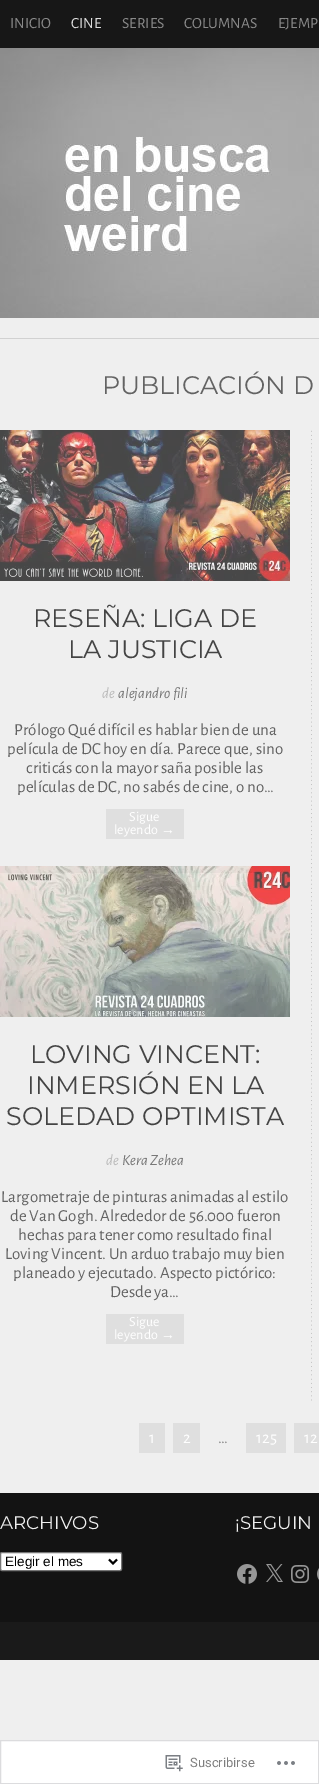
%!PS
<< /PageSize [319 1784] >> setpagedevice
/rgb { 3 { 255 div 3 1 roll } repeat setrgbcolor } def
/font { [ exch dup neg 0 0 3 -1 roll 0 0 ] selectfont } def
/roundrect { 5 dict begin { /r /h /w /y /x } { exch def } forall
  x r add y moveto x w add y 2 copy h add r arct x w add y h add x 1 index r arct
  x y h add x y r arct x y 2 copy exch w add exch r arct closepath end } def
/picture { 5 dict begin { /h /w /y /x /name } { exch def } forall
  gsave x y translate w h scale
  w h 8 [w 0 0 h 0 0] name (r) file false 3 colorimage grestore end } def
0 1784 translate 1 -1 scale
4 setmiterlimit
239 239 239 rgb
0 0 319 1784 rectfill
23 23 23 rgb
0 0 319 48 rectfill
209 209 209 rgb
0 338 319 1 rectfill
(img/1.rgb) 0 48 319 270 picture
(img/2.rgb) 311 430 1 971 picture
(img/3.rgb) 0 430 290 151 picture
223 223 223 rgb
106 809 78 30 rectfill
(img/4.rgb) 0 866 290 151 picture
[
  [106 1314 78 30 223 223 223]
  [139 1423 26 30 223 223 223]
  [173 1423 27 30 223 223 223]
  [246 1423 40 30 223 223 223]
  [294 1423 25 30 223 223 223]
  [0 1493 319 129 19 19 19]
] { aload pop rgb rectfill } forall
255 255 255 rgb
0.5 1552.5 121 18 1.5 roundrect gsave fill grestore
118 118 118 rgb
stroke
0 0 0 rgb
2 setlinewidth
109 1559.5 moveto 113 1563.5 lineto 117 1559.5 lineto stroke
(img/5.rgb) 237 1564 20 20 picture
(img/6.rgb) 266 1564 17 18 picture
(img/7.rgb) 291 1565 18 18 picture
(img/8.rgb) 317 1568 2 12 picture
26 26 26 rgb
0 1622 319 38 rectfill
255 255 255 rgb
0.5 1740.5 moveto 318.5 1740.5 lineto 318.5 1783.5 lineto 0.5 1783.5 lineto closepath gsave fill grestore
220 220 222 rgb
1 setlinewidth
stroke
(img/9.rgb) 165 1755 18 17 picture
(img/10.rgb) 277 1761 18 4 picture
/AlegreyaSans-Regular 15.5 font
137 137 137 rgb
10 28 moveto (INICIO) show
219 219 219 rgb
71 28 moveto (CINE) show
137 137 137 rgb
[
  [(SERIES) 122 28]
  [(COLUMNAS) 184 28]
  [(EJEMP) 278 28]
] { aload pop moveto show } forall
/Montserrat-Thin 25.4 font
99 99 99 rgb
102 394 moveto (PUBLICACIÓN D) show
68 68 68 rgb
33 627 moveto (RESEÑA: LIGA DE) show
68 658 moveto (LA JUSTICIA) show
/AlegreyaSans-Italic 15.5 font
187 187 187 rgb
102 698 moveto (de) show
120 120 120 rgb
118 698 moveto (alejandro fili) show
/AlegreyaSans-Regular 16.9 font
99 99 99 rgb
[
  [(Prólogo Qué difícil es hablar bien de una) 14 735]
  [(película de DC hoy en día. Parece que, sino) 7 754]
  [(criticás con la mayor saña posible las) 26 773]
  [(películas de DC, no sabés de cine, o no…) 17 792]
] { aload pop moveto show } forall
/AlegreyaSans-Regular 14 font
255 255 255 rgb
129 821 moveto (Sigue) show
114 834 moveto (leyendo) show
/LiberationSans-Regular 14 font
161 834 moveto (→) show
/Montserrat-Thin 25.4 font
68 68 68 rgb
[
  [(LOVING VINCENT:) 30 1063]
  [(INMERSIÓN EN LA) 27 1094]
  [(SOLEDAD OPTIMISTA) 6 1125]
] { aload pop moveto show } forall
/AlegreyaSans-Italic 15.5 font
187 187 187 rgb
106 1165 moveto (de) show
120 120 120 rgb
122 1165 moveto (Kera Zehea) show
/AlegreyaSans-Regular 16.9 font
99 99 99 rgb
[
  [(Largometraje de pinturas animadas al estilo) 1 1202]
  [(de Van Gogh. Alrededor de 56.000 fueron) 10 1221]
  [(hechas para tener como resultado final) 18 1240]
  [(Loving Vincent. Un arduo trabajo muy bien) 5 1259]
  [(planeado y ejecutado. Aspecto pictórico:) 13 1278]
  [(Desde ya…) 110 1297]
] { aload pop moveto show } forall
/AlegreyaSans-Regular 14 font
255 255 255 rgb
129 1326 moveto (Sigue) show
114 1339 moveto (leyendo) show
/LiberationSans-Regular 14 font
161 1339 moveto (→) show
/AlegreyaSans-Regular 16.9 font
149 1443 moveto (1) show
183 1443 moveto (2) show
127 127 127 rgb
218 1443 moveto (…) show
255 255 255 rgb
256 1443 moveto (125) show
304 1443 moveto (12) show
/Montserrat-Thin 18.25 font
239 239 239 rgb
0 1529 moveto (ARCHIVOS) show
/LiberationSans-Regular 13.5 font
0 0 0 rgb
5 1566 moveto (Elegir el mes) show
/Montserrat-Thin 18.25 font
239 239 239 rgb
235 1529 moveto (¡SEGUIN) show
/Roboto-Regular 13 font
127 127 127 rgb
190 1767 moveto (Suscribirse) show
showpage
